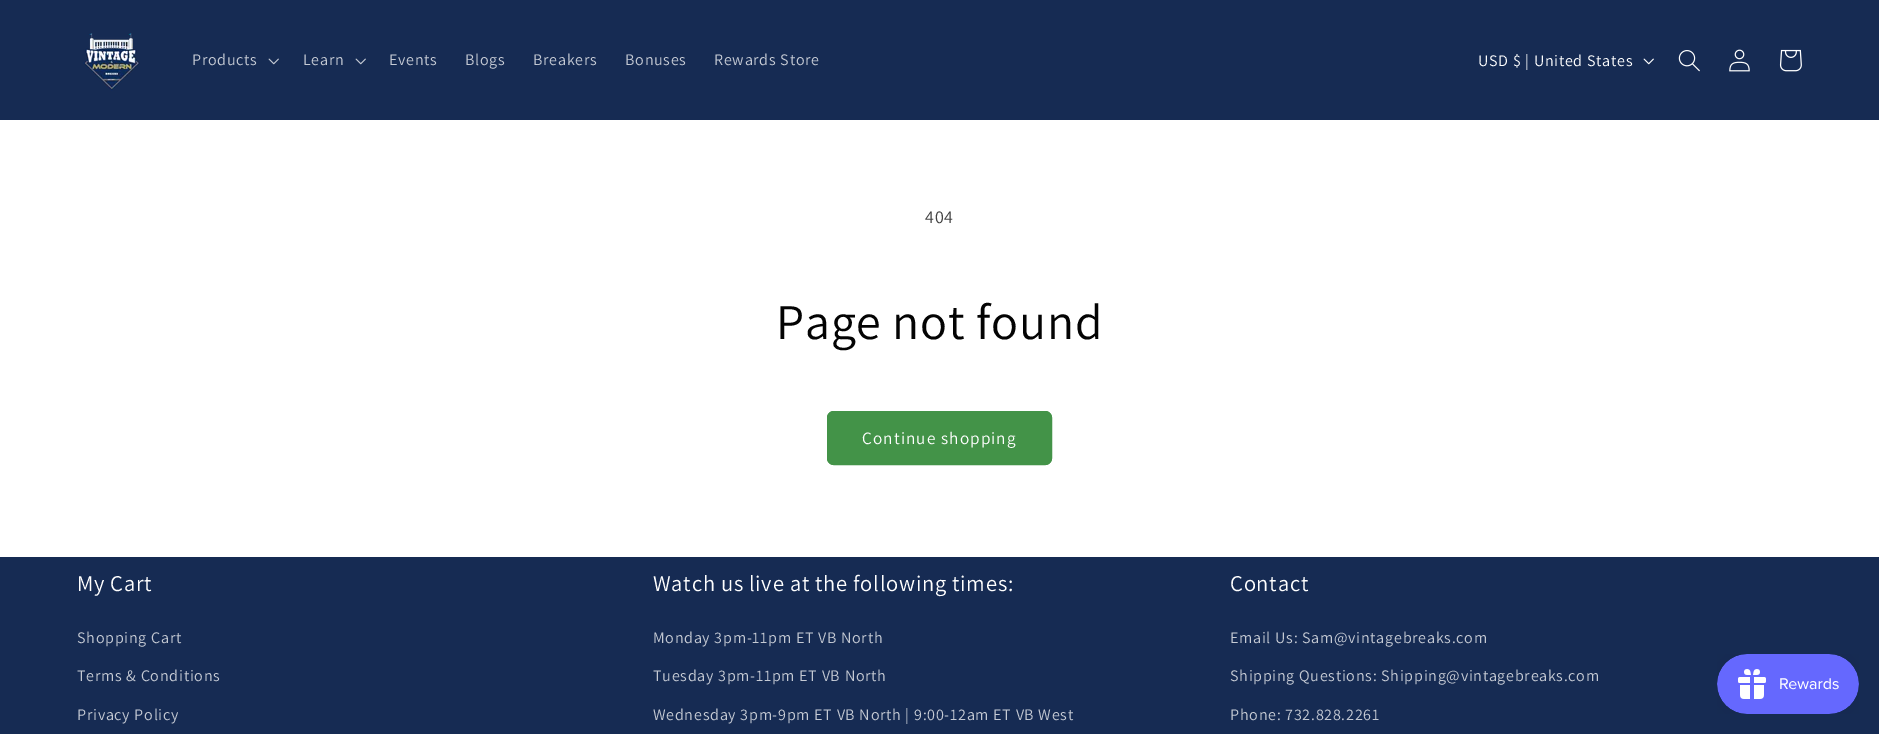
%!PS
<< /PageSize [1879 734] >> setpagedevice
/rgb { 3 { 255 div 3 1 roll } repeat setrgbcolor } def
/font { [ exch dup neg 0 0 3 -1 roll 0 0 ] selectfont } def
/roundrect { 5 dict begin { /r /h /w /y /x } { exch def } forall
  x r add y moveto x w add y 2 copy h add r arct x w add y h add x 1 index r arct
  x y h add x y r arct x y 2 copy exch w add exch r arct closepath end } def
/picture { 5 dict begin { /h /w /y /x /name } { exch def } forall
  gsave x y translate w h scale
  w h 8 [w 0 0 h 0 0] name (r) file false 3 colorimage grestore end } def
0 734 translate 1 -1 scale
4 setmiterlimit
255 255 255 rgb
0 0 1879 734 rectfill
22 43 83 rgb
0 0 1879 120 rectfill
(img/1.rgb) 83 33 57 58 picture
(img/2.rgb) 268 58 11 7 picture
(img/2.rgb) 355 58 11 7 picture
(img/3.rgb) 1643 58 11 7 picture
(img/4.rgb) 1678 50 22 22 picture
(img/5.rgb) 1729 49 21 23 picture
(img/6.rgb) 1779 49 23 23 picture
67 147 72 rgb
827 411 225 54 7 roundrect fill
827.5 411.5 224 53 6.5 roundrect stroke
22 43 83 rgb
0 557 1879 177 rectfill
(img/7.rgb) 1717 654 142 60 picture
/Assistant-Regular 16.1 font
197 202 212 rgb
192 65 moveto 0.7 0 (Products) ashow
303 65 moveto 0.7 0 (Learn) ashow
389 65 moveto 0.7 0 (Events) ashow
465 65 moveto 0.7 0 (Blogs) ashow
533 65 moveto 0.7 0 (Breakers) ashow
625 65 moveto 0.7 0 (Bonuses) ashow
714 65 moveto 0.7 0 (Rewards Store) ashow
255 255 255 rgb
1478 66 moveto 0.7 0 (USD $ | United States) ashow
/Assistant-Regular 18 font
66 66 66 rgb
925 223 moveto 0.7 0 (404) ashow
/Assistant-Regular 50 font
3 3 3 rgb
776 339 moveto 0.75 0 (Page not found) ashow
/Assistant-Regular 17.25 font
255 255 255 rgb
862 444 moveto 1.1 0 (Continue shopping) ashow
/Assistant-Regular 22.5 font
77 591 moveto 0.75 0 (My Cart) ashow
/Assistant-Regular 16.1 font
197 202 212 rgb
77 643 moveto 0.7 0 (Shopping Cart) ashow
77 681 moveto 0.7 0 (Terms & Conditions) ashow
77 720 moveto 0.7 0 (Privacy Policy) ashow
/Assistant-Regular 22.5 font
255 255 255 rgb
653 591 moveto 0.75 0 (Watch us live at the following times:) ashow
/Assistant-Regular 16.1 font
197 202 212 rgb
653 643 moveto 0.7 0 (Monday 3pm-11pm ET VB North) ashow
653 681 moveto 0.7 0 (Tuesday 3pm-11pm ET VB North) ashow
653 720 moveto 0.7 0 (Wednesday 3pm-9pm ET VB North | 9:00-12am ET VB West) ashow
/Assistant-Regular 22.5 font
255 255 255 rgb
1230 591 moveto 0.75 0 (Contact) ashow
/Assistant-Regular 16.1 font
197 202 212 rgb
1230 643 moveto 0.7 0 (Email Us: Sam@vintagebreaks.com) ashow
1230 681 moveto 0.7 0 (Shipping Questions: Shipping@vintagebreaks.com) ashow
1230 720 moveto 0.7 0 (Phone: 732.828.2261) ashow
showpage
